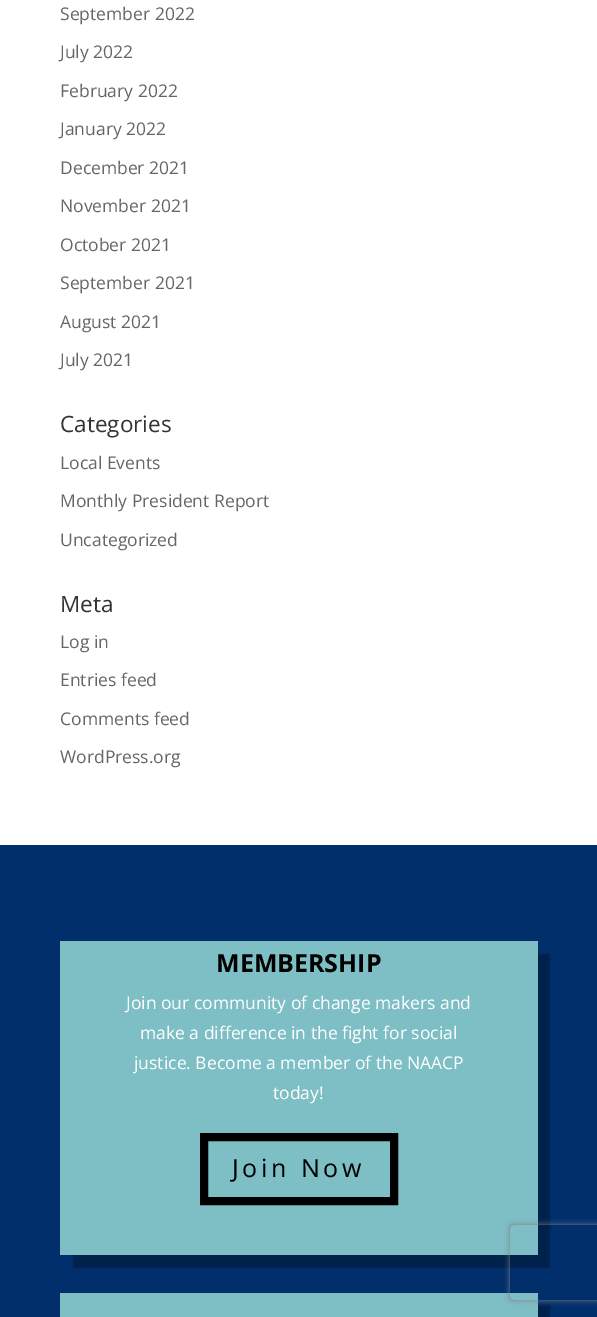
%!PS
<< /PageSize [597 1317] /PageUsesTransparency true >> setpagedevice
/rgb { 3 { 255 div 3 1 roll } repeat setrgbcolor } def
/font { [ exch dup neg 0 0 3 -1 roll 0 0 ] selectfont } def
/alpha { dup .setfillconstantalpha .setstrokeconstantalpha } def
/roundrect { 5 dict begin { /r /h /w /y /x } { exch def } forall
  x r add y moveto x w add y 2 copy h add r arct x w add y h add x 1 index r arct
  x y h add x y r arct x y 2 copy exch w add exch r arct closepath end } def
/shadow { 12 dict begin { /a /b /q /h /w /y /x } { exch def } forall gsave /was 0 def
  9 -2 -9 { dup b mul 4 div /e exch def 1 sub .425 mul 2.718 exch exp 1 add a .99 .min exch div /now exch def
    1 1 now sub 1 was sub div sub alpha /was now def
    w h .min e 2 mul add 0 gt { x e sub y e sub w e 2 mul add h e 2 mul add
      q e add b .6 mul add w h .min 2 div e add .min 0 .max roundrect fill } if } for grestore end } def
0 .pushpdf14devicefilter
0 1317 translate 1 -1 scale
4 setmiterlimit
255 255 255 rgb
0 0 597 1317 rectfill
0 47 108 rgb
0 845 597 472 rectfill
0 0 0 rgb
73 954 477 314 0 1 0.3 shadow
126 190 197 rgb
60 941 478 314 rectfill
0 0 0 rgb
8 setlinewidth
204 1137 190 64 rectstroke
73 1305 477 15 0 1 0.3 shadow
126 190 197 rgb
60 1293 478 24 rectfill
gsave
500 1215 moveto 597 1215 lineto 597 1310 lineto 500 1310 lineto closepath 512.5 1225 moveto 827.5 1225 lineto 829 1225 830 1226 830 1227.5 curveto 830 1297.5 lineto 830 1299 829 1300 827.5 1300 curveto 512.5 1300 lineto 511 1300 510 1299 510 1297.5 curveto 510 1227.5 lineto 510 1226 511 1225 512.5 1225 curveto closepath eoclip newpath
128 128 128 rgb
510 1225 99 75 2.5 3 1 shadow
grestore
/OpenSans-Regular 17.5 font
102 102 102 rgb
[
  [(September 2022) 60 20]
  [(July 2022) 60 58]
  [(February 2022) 60 97]
  [(January 2022) 60 135]
  [(December 2021) 60 174]
  [(November 2021) 60 212]
  [(October 2021) 60 251]
  [(September 2021) 60 289]
  [(August 2021) 60 328]
  [(July 2021) 60 366]
] { aload pop moveto show } forall
/OpenSans-Regular 22.5 font
51 51 51 rgb
60 432 moveto (Categories) show
/OpenSans-Regular 17.5 font
102 102 102 rgb
[
  [(Local Events) 60 469]
  [(Monthly President Report) 60 507]
  [(Uncategorized) 60 546]
] { aload pop moveto show } forall
/OpenSans-Regular 22.5 font
51 51 51 rgb
60 612 moveto (Meta) show
/OpenSans-Regular 17.5 font
102 102 102 rgb
[
  [(Log in) 60 648]
  [(Entries feed) 60 686]
  [(Comments feed) 60 725]
  [(WordPress.org) 60 763]
] { aload pop moveto show } forall
/OpenSans-Bold 25 font
0 0 0 rgb
216 972 moveto (MEMBERSHIP) show
/OpenSans-Regular 17.5 font
255 255 255 rgb
[
  [(Join our community of change makers and) 126 1009]
  [(make a difference in the fight for social) 140 1039]
  [(justice. Become a member of the NAACP) 134 1069]
  [(today!) 273 1099]
] { aload pop moveto show } forall
/OpenSans-Regular 25 font
0 0 0 rgb
232 1177 moveto 3.75 0 (Join Now) ashow
.poppdf14devicefilter showpage
